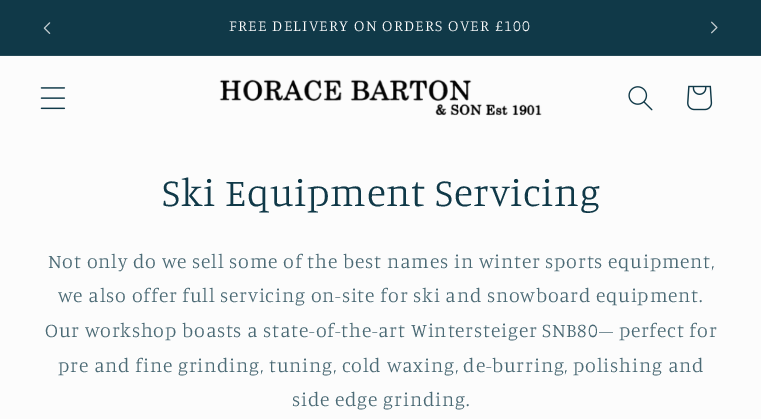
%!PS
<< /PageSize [761 419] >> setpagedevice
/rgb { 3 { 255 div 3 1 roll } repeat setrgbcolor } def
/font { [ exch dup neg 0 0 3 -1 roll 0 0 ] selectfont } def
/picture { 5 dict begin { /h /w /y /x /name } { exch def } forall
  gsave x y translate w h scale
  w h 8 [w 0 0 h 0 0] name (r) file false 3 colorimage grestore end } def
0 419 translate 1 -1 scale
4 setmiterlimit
252 252 252 rgb
0 0 761 419 rectfill
16 57 72 rgb
0 0 761 55 rectfill
35 73 86 rgb
0 55 761 1 rectfill
(img/1.rgb) 43 22 8 12 picture
(img/2.rgb) 711 21 7 13 picture
(img/3.rgb) 40 87 26 23 picture
(img/4.rgb) 219 79 323 37 picture
(img/5.rgb) 628 86 25 25 picture
(img/6.rgb) 687 85 26 26 picture
/Manuale-Light 15.75 font
252 252 252 rgb
229 31 moveto 1.3 0 (FREE DELIVERY ON ORDERS OVER £100) ashow
/Manuale-Light 39.4 font
16 57 72 rgb
162 206 moveto 0.8 0 (Ski Equipment Servicing) ashow
/Manuale-Light 19.7 font
75 106 117 rgb
48 268 moveto 0.8 0 (Not only do we sell some of the best names in winter sports equipment,) ashow
58 302 moveto 0.8 0 (we also offer full servicing on-site for ski and snowboard equipment.) ashow
45 337 moveto 0.8 0 (Our workshop boasts a state-of-the-art Wintersteiger SNB80– perfect for) ashow
58 372 moveto 0.8 0 (pre and fine grinding, tuning, cold waxing, de-burring, polishing and) ashow
292 406 moveto 0.8 0 (side edge grinding.) ashow
showpage
